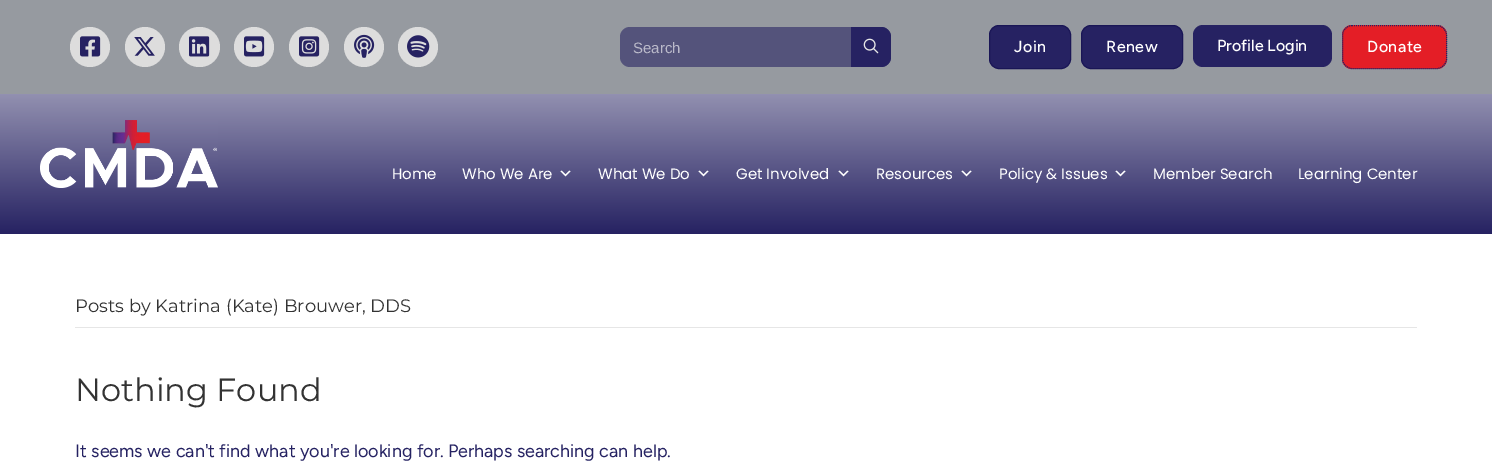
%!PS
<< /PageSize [1492 474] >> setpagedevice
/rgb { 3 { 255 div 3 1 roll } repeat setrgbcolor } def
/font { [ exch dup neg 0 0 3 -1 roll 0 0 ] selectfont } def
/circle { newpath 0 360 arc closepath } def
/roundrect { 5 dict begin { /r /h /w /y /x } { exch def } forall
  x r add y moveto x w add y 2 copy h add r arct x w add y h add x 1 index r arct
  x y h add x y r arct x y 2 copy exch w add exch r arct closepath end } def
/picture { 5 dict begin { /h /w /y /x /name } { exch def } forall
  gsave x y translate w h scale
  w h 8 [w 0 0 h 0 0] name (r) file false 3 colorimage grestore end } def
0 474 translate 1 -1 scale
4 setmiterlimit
255 255 255 rgb
0 0 1492 474 rectfill
150 154 160 rgb
0 0 1492 94 rectfill
221 221 221 rgb
90 47 20 circle fill
(img/1.rgb) 80 36 21 21 picture
145 47 20 circle fill
(img/2.rgb) 134 37 21 19 picture
179 27 41 40 20 roundrect fill
(img/3.rgb) 189 36 21 21 picture
254 47 20 circle fill
(img/4.rgb) 244 36 21 21 picture
309 47 20 circle fill
(img/5.rgb) 299 36 21 21 picture
364 47 20 circle fill
(img/6.rgb) 354 34 21 24 picture
418 47 20 circle fill
(img/7.rgb) 407 35 23 23 picture
84 83 123 rgb
620 27 271 40 10 roundrect fill
38 34 98 rgb
851 27 moveto 881 27 lineto 886.5 27 891 31.5 891 37 curveto 891 57 lineto 891 62.5 886.5 67 881 67 curveto 851 67 lineto closepath fill
(img/8.rgb) 863 38 16 16 picture
989.5 25.5 81 43 9.5 roundrect gsave fill grestore
26 22 86 rgb
stroke
38 34 98 rgb
1081.5 25.5 101 43 9.5 roundrect gsave fill grestore
26 22 86 rgb
stroke
38 34 98 rgb
1193 25 139 42 10 roundrect fill
228 30 38 rgb
1342 25 105 44 10 roundrect fill
38 34 98 rgb
[1 1] 0 setdash
1352 25.5 moveto 1437 25.5 lineto 1442 25.5 1446.5 30 1446.5 35 curveto 1446.5 59 lineto 1446.5 64 1442 68.5 1437 68.5 curveto 1352 68.5 lineto 1347 68.5 1342.5 64 1342.5 59 curveto 1342.5 35 lineto 1342.5 30 1347 25.5 1352 25.5 curveto closepath stroke
gsave 0 94 moveto 1492 94 lineto 1492 234 lineto 0 234 lineto closepath clip newpath
<< /ShadingType 2 /ColorSpace /DeviceRGB /Coords [746 234 746 94] /Extend [true true] /Function << /FunctionType 2 /Domain [0 1] /C0 [0.149 0.133 0.384] /C1 [0.573 0.565 0.69] /N 1 >> >> shfill grestore
(img/9.rgb) 40 120 178 68 picture
(img/10.rgb) 560 170 11 7 picture
(img/10.rgb) 698 170 11 7 picture
(img/10.rgb) 838 170 11 7 picture
(img/10.rgb) 961 170 11 7 picture
(img/10.rgb) 1115 170 11 7 picture
230 230 230 rgb
75 327 1342 1 rectfill
/LiberationSans-Regular 15 font
187 186 202 rgb
633 53 moveto (Search) show
/Figtree-Medium 16 font
255 255 255 rgb
1014 52 moveto 0.5 0 (Join) ashow
1106 52 moveto 0.5 0 (Renew) ashow
1217 51 moveto (Profile Login) show
1367 52 moveto 0.5 0 (Donate) ashow
/Poppins-Regular 15 font
[
  [(Home) 392 179]
  [(Who We Are) 462 179]
  [(What We Do) 598 179]
  [(Get Involved) 736 179]
  [(Resources) 876 179]
  [(Policy & Issues) 999 179]
  [(Member Search) 1153 179]
  [(Learning Center) 1298 179]
] { aload pop moveto show } forall
/Montserrat-Thin 18 font
51 51 51 rgb
75 312 moveto (Posts by Katrina \(Kate\) Brouwer, DDS) show
/Montserrat-Thin 32 font
75 401 moveto (Nothing Found) show
/Figtree-Regular 18 font
37 34 98 rgb
75 457 moveto (It seems we can't find what you're looking for. Perhaps searching can help.) show
showpage
